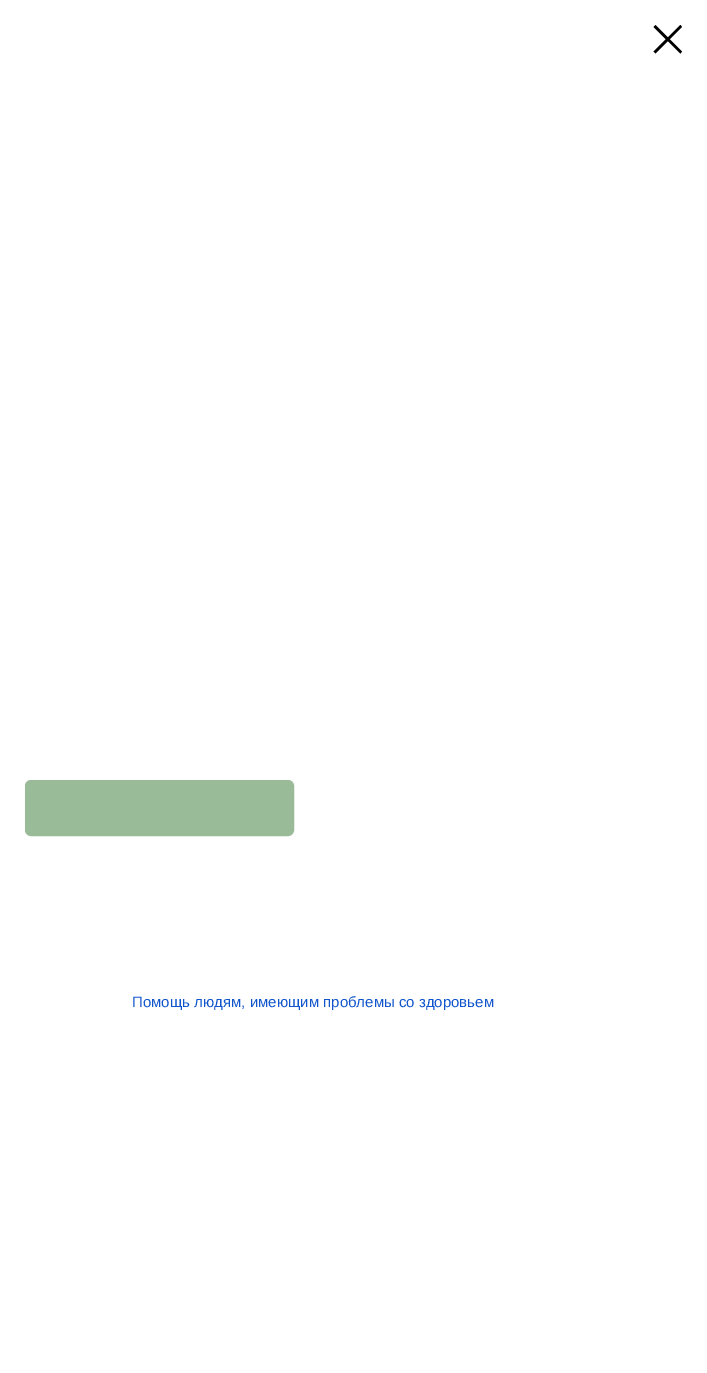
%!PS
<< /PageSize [707 1373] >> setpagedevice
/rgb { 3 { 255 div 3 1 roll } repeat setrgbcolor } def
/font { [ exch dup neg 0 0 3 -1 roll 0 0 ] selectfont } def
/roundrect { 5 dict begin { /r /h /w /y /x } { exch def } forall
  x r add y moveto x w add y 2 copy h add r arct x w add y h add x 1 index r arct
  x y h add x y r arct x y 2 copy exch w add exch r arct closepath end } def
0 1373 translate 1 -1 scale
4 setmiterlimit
255 255 255 rgb
0 0 707 1373 rectfill
0 0 0 rgb
653.5 27 moveto 655.5 25 lineto 682 51.5 lineto 680.5 53.5 lineto closepath eofill
680.5 25 moveto 682 27 lineto 655.5 53.5 lineto 653.5 51.5 lineto closepath eofill
154 187 152 rgb
26.5 781.5 266 53 4.5 roundrect gsave fill grestore
3 setlinewidth
stroke
/LiberationSans-Regular 15 font
17 85 204 rgb
132 1007 moveto (Помощь людям, имеющим проблемы со здоровьем) show
showpage
